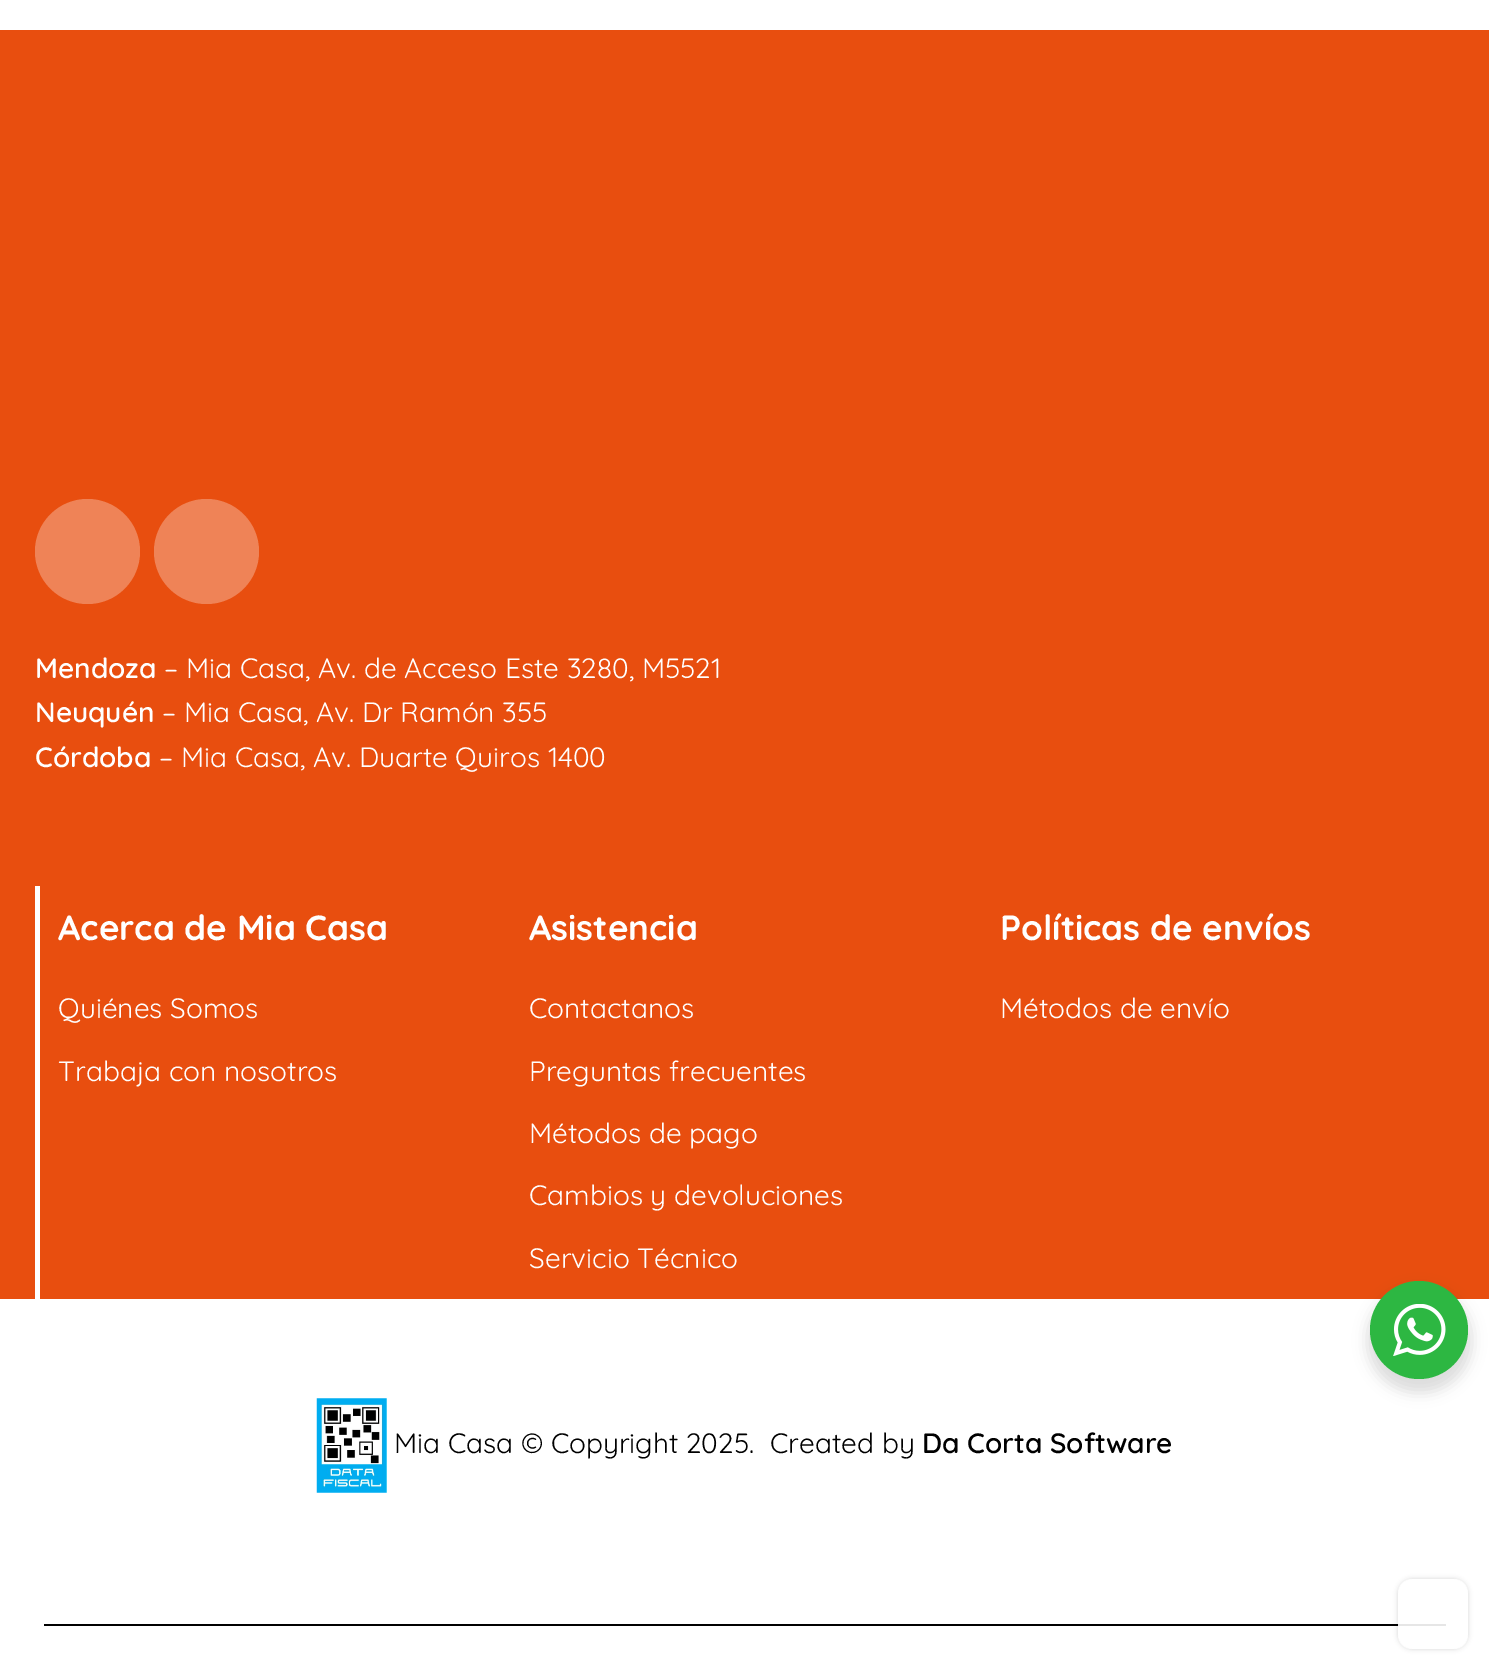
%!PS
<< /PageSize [1489 1668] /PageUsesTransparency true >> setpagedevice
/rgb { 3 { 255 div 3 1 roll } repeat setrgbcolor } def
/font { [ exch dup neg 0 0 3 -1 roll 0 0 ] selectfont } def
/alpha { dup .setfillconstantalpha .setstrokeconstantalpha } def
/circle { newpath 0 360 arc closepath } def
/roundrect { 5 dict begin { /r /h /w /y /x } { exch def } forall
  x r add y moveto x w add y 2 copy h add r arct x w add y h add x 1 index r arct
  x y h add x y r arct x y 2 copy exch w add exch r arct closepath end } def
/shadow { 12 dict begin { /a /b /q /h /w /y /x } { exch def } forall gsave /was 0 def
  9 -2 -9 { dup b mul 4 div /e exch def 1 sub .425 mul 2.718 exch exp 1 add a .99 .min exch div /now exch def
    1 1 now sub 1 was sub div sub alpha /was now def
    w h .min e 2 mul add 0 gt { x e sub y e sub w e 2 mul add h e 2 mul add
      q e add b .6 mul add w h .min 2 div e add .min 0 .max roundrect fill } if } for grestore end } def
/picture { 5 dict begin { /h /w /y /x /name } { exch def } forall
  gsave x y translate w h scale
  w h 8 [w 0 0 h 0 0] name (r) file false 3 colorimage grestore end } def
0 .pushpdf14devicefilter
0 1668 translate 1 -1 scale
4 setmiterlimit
255 255 255 rgb
0 0 1489 1668 rectfill
232 78 15 rgb
0 30 1489 1269 rectfill
239 131 87 rgb
87.5 551.5 52.5 circle fill
206.5 551.5 52.5 circle fill
255 255 255 rgb
35 886 5 413 rectfill
(img/1.rgb) 316 1398 71 95 picture
0 0 0 rgb
44 1624 1402 2 rectfill
1367 1288 105 105 52.5 7 0.14 shadow
45 183 66 rgb
1419 1330 49 circle fill
(img/2.rgb) 1393 1304 53 52 picture
gsave
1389 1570 moveto 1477 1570 lineto 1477 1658 lineto 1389 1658 lineto closepath 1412 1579 moveto 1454 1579 lineto 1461.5 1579 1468 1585.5 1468 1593 curveto 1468 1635 lineto 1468 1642.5 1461.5 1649 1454 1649 curveto 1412 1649 lineto 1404.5 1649 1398 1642.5 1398 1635 curveto 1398 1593 lineto 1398 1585.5 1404.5 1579 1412 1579 curveto closepath eoclip newpath
0 0 0 rgb
1398 1579 70 70 14 2.5 0.15 shadow
grestore
0.9 alpha
255 255 255 rgb
1398 1579 70 70 14 roundrect fill
/Quicksand-SemiBold 28 font
1 alpha
35 678 moveto (Mendoza) show
/Quicksand-Regular 28 font
164 678 moveto (– Mia Casa, Av. de Acceso Este 3280, M5521) show
/Quicksand-SemiBold 28 font
35 722 moveto (Neuquén) show
/Quicksand-Regular 28 font
162 722 moveto (– Mia Casa, Av. Dr Ramón 355) show
/Quicksand-SemiBold 28 font
35 767 moveto (Córdoba) show
/Quicksand-Regular 28 font
159 767 moveto (– Mia Casa, Av. Duarte Quiros 1400) show
/Quicksand-Bold 35 font
58 940 moveto (Acerca de Mia Casa) show
/Quicksand-Regular 28 font
58 1018 moveto (Quiénes Somos) show
58 1081 moveto (Trabaja con nosotros) show
/Quicksand-Bold 35 font
529 940 moveto (Asistencia) show
/Quicksand-Regular 28 font
[
  [(Contactanos) 529 1018]
  [(Preguntas frecuentes) 529 1081]
  [(Métodos de pago) 529 1143]
  [(Cambios y devoluciones) 529 1205]
  [(Servicio Técnico) 529 1268]
] { aload pop moveto show } forall
/Quicksand-Bold 35 font
1000 940 moveto (Políticas de envíos) show
/Quicksand-Regular 28 font
1000 1018 moveto (Métodos de envío) show
0 0 0 rgb
394 1453 moveto (Mia Casa © Copyright 2025.) show
770 1453 moveto (Created by) show
/Quicksand-SemiBold 28 font
922 1453 moveto (Da Corta Software) show
.poppdf14devicefilter showpage
